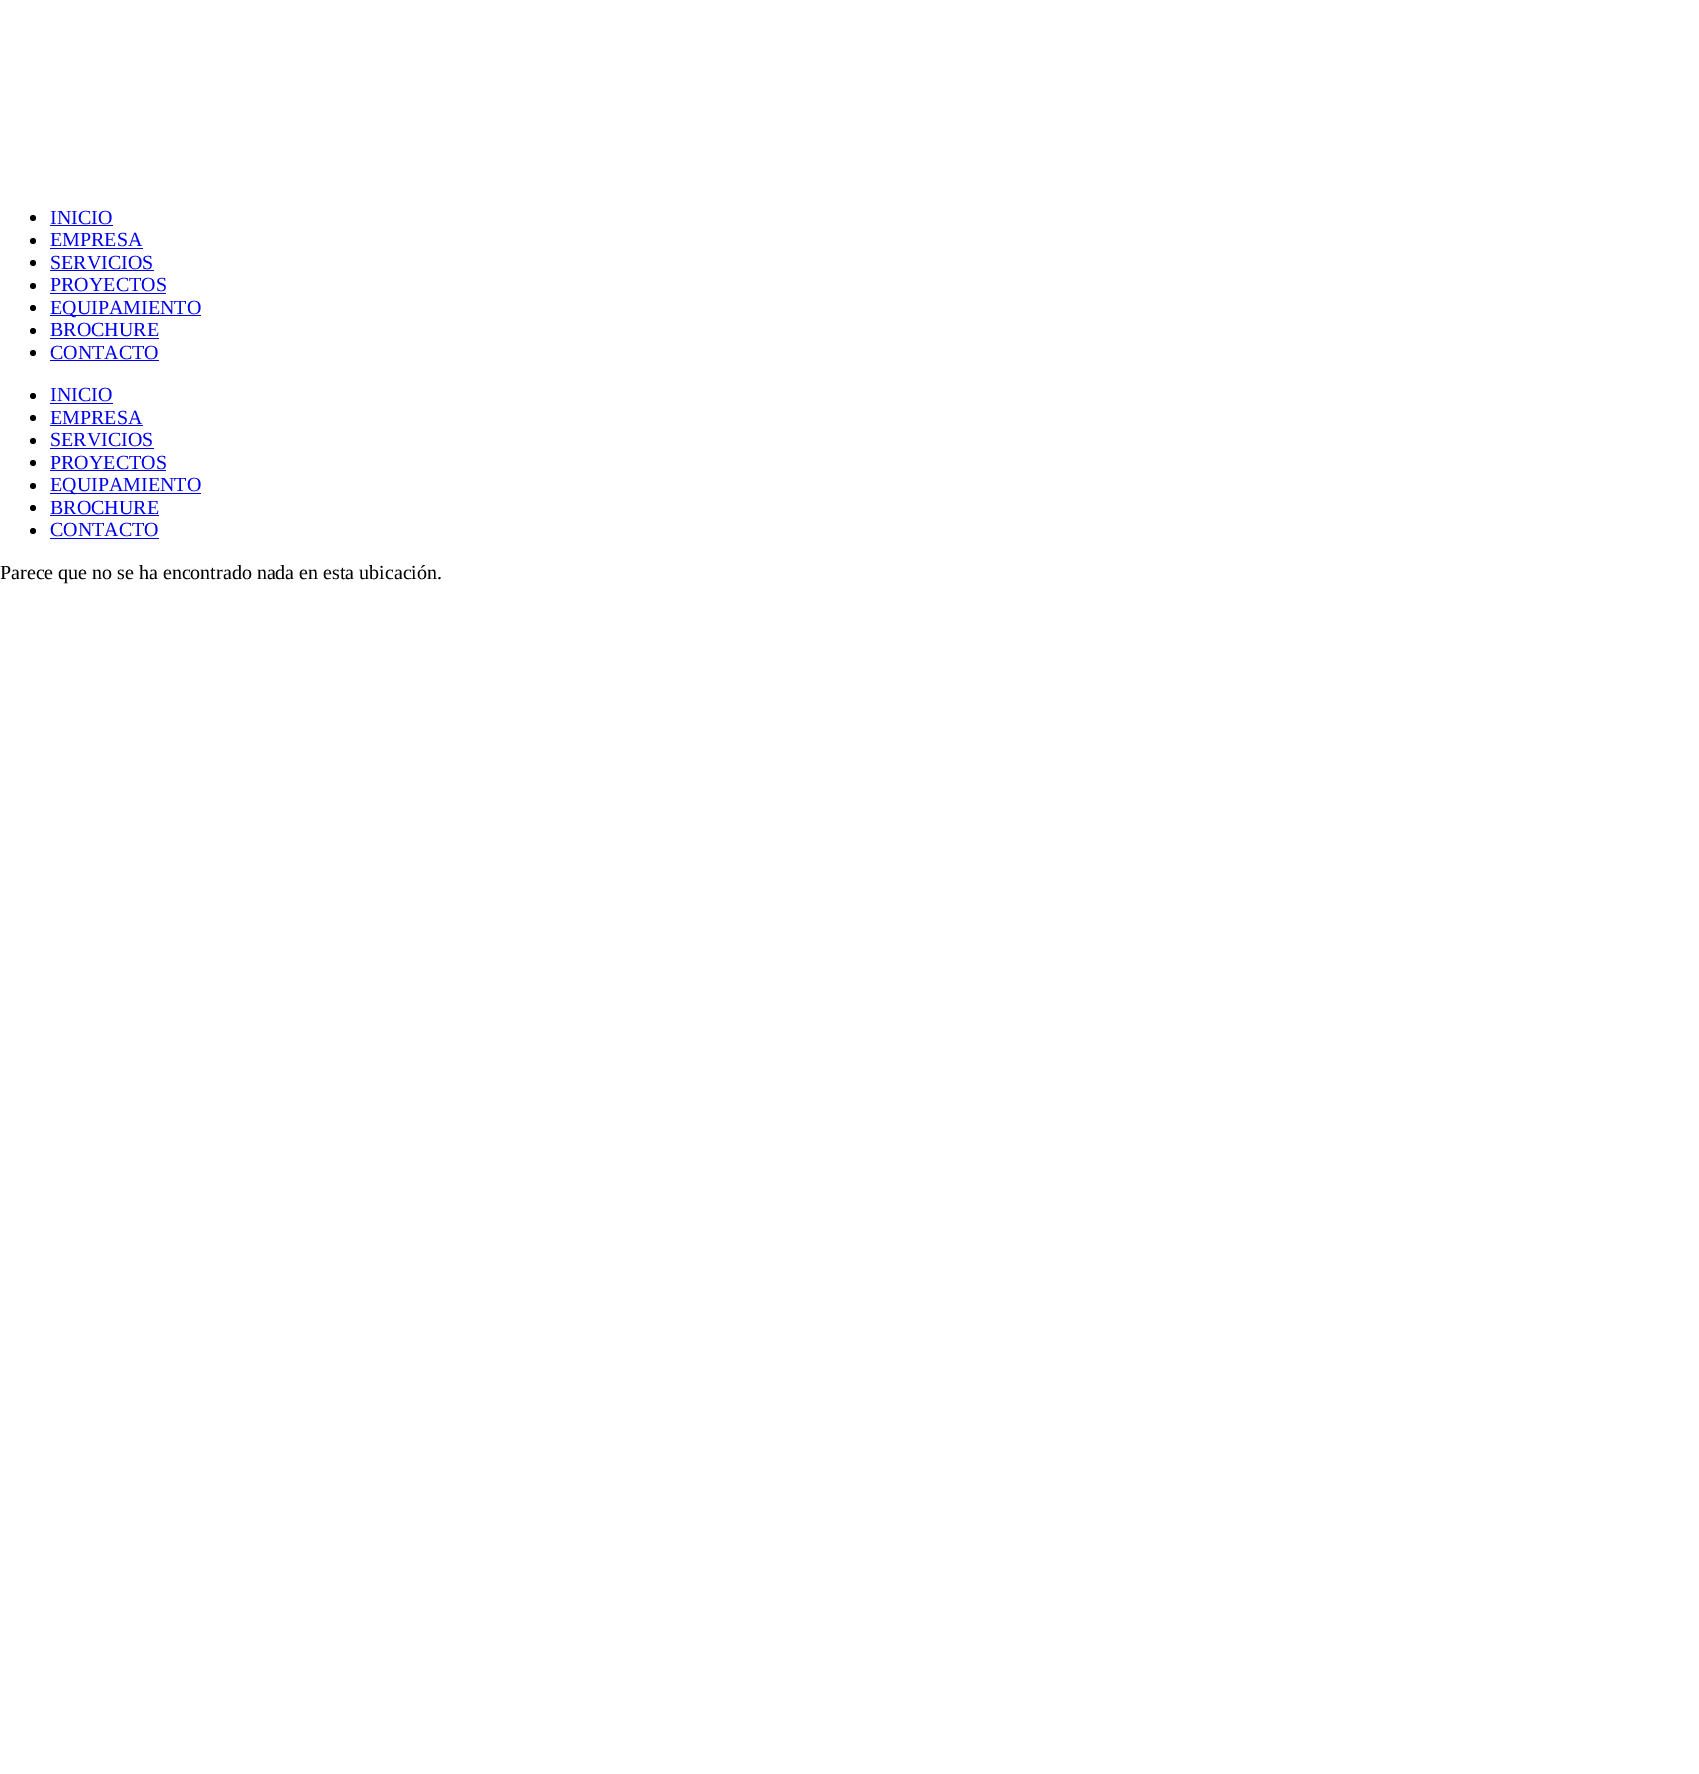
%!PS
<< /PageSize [1699 1774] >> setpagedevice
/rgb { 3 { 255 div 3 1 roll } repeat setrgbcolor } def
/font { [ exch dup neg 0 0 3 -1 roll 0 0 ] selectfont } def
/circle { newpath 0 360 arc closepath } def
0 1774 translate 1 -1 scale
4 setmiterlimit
255 255 255 rgb
0 0 1699 1774 rectfill
0 0 0 rgb
33 218 3 circle fill
0 0 238 rgb
50 225 63 1 rectfill
0 0 0 rgb
33 241 3 circle fill
0 0 238 rgb
50 248 93 1 rectfill
0 0 0 rgb
33 263 3 circle fill
0 0 238 rgb
50 270 104 1 rectfill
0 0 0 rgb
33 286 3 circle fill
0 0 238 rgb
50 293 116 1 rectfill
0 0 0 rgb
33 308 3 circle fill
0 0 238 rgb
50 315 151 1 rectfill
0 0 0 rgb
33 331 3 circle fill
0 0 238 rgb
50 338 109 1 rectfill
0 0 0 rgb
33 353 3 circle fill
0 0 238 rgb
50 360 109 1 rectfill
0 0 0 rgb
33 396 3 circle fill
0 0 238 rgb
50 403 63 1 rectfill
0 0 0 rgb
33 418 3 circle fill
0 0 238 rgb
50 425 93 1 rectfill
0 0 0 rgb
33 441 3 circle fill
0 0 238 rgb
50 448 104 1 rectfill
0 0 0 rgb
33 463 3 circle fill
0 0 238 rgb
50 470 116 1 rectfill
0 0 0 rgb
33 486 3 circle fill
0 0 238 rgb
50 493 151 1 rectfill
0 0 0 rgb
33 508 3 circle fill
0 0 238 rgb
50 515 109 1 rectfill
0 0 0 rgb
33 531 3 circle fill
0 0 238 rgb
50 538 109 1 rectfill
/LiberationSerif-Regular 20 font
[
  [(INICIO) 50 224]
  [(EMPRESA) 50 246]
  [(SERVICIOS) 50 269]
  [(PROYECTOS) 50 291]
  [(EQUIPAMIENTO) 50 314]
  [(BROCHURE) 50 336]
  [(CONTACTO) 50 359]
  [(INICIO) 50 401]
  [(EMPRESA) 50 424]
  [(SERVICIOS) 50 446]
  [(PROYECTOS) 50 469]
  [(EQUIPAMIENTO) 50 491]
  [(BROCHURE) 50 514]
  [(CONTACTO) 50 536]
] { aload pop moveto show } forall
0 0 0 rgb
0 579 moveto (Parece que no se ha encontrado nada en esta ubicación.) show
showpage
